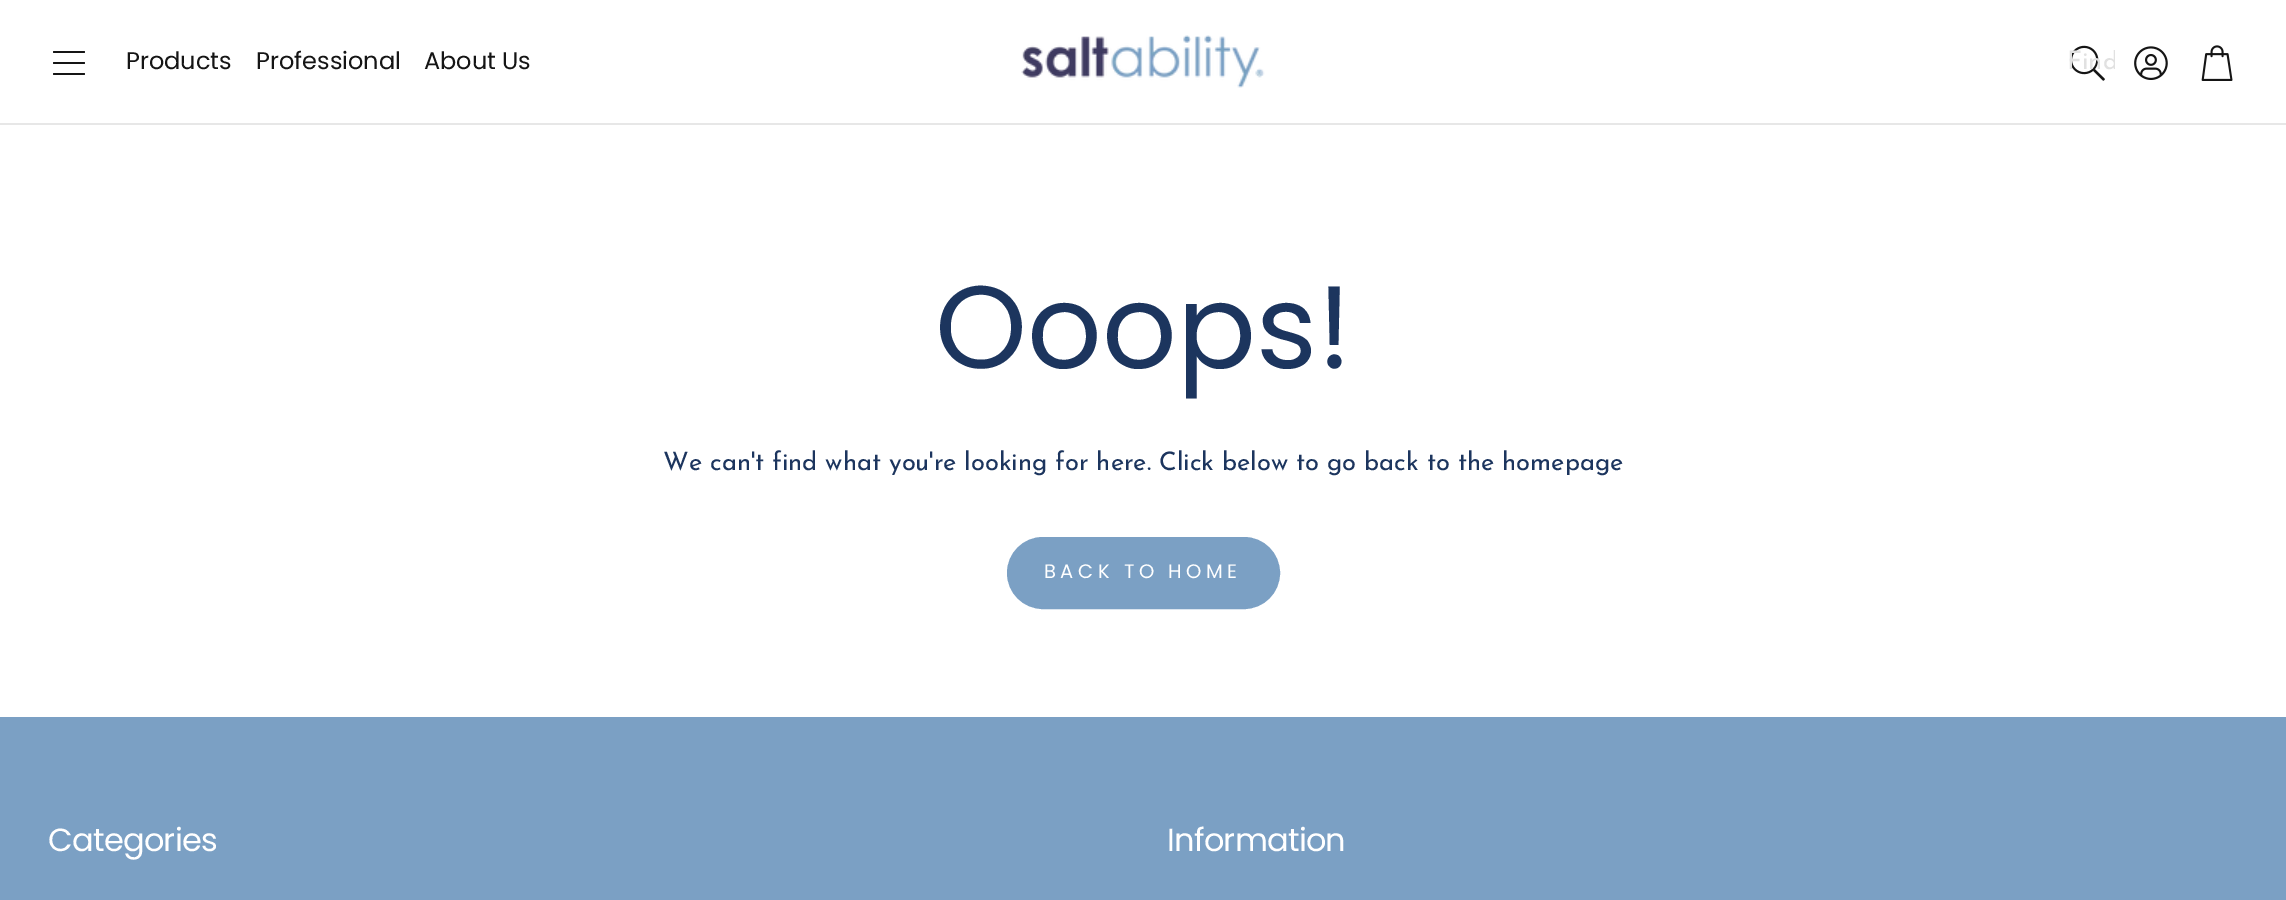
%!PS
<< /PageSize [2286 900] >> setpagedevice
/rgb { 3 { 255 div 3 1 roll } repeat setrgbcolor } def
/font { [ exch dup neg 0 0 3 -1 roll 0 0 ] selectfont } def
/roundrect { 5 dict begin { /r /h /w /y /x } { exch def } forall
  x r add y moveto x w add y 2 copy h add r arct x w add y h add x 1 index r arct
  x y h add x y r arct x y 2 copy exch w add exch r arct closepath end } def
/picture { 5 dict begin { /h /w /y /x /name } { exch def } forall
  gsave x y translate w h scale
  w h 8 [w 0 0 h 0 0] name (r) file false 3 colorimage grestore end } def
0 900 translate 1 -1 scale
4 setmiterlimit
255 255 255 rgb
0 0 2286 900 rectfill
231 231 231 rgb
0 123 2286 2 rectfill
21 21 21 rgb
53 51 32 2 1 roundrect fill
53 62 32 2 1 roundrect fill
53 73 32 2 1 roundrect fill
(img/1.rgb) 1021 35 244 53 picture
(img/2.rgb) 2069 45 36 36 picture
(img/3.rgb) 2134 46 34 34 picture
(img/4.rgb) 2201 45 32 36 picture
123 160 196 rgb
1008 538 271 70 35 roundrect gsave fill grestore
2 setlinewidth
stroke
0 717 2286 183 rectfill
/Poppins-Regular 24 font
21 21 21 rgb
[
  [(Products) 126 69]
  [(Professional) 256 69]
  [(About Us) 424 69]
] { aload pop moveto show } forall
gsave
2067 50 48 25 rectclip
/JosefinSans-Regular 25.5 font
225 225 225 rgb
2067 69 moveto (Find) show
grestore
/Poppins-Regular 117 font
28 53 94 rgb
935 368 moveto (Ooops!) show
/JosefinSans-Regular 25.5 font
663 470 moveto (We can't find what you're looking for here. Click below to go back to the homepage) show
/Poppins-Regular 19.5 font
255 255 255 rgb
1044 578 moveto 4.5 0 (BACK TO HOME) ashow
/Poppins-Regular 32 font
48 851 moveto -0.75 0 (Categories) ashow
1167 851 moveto -0.75 0 (Information) ashow
showpage
